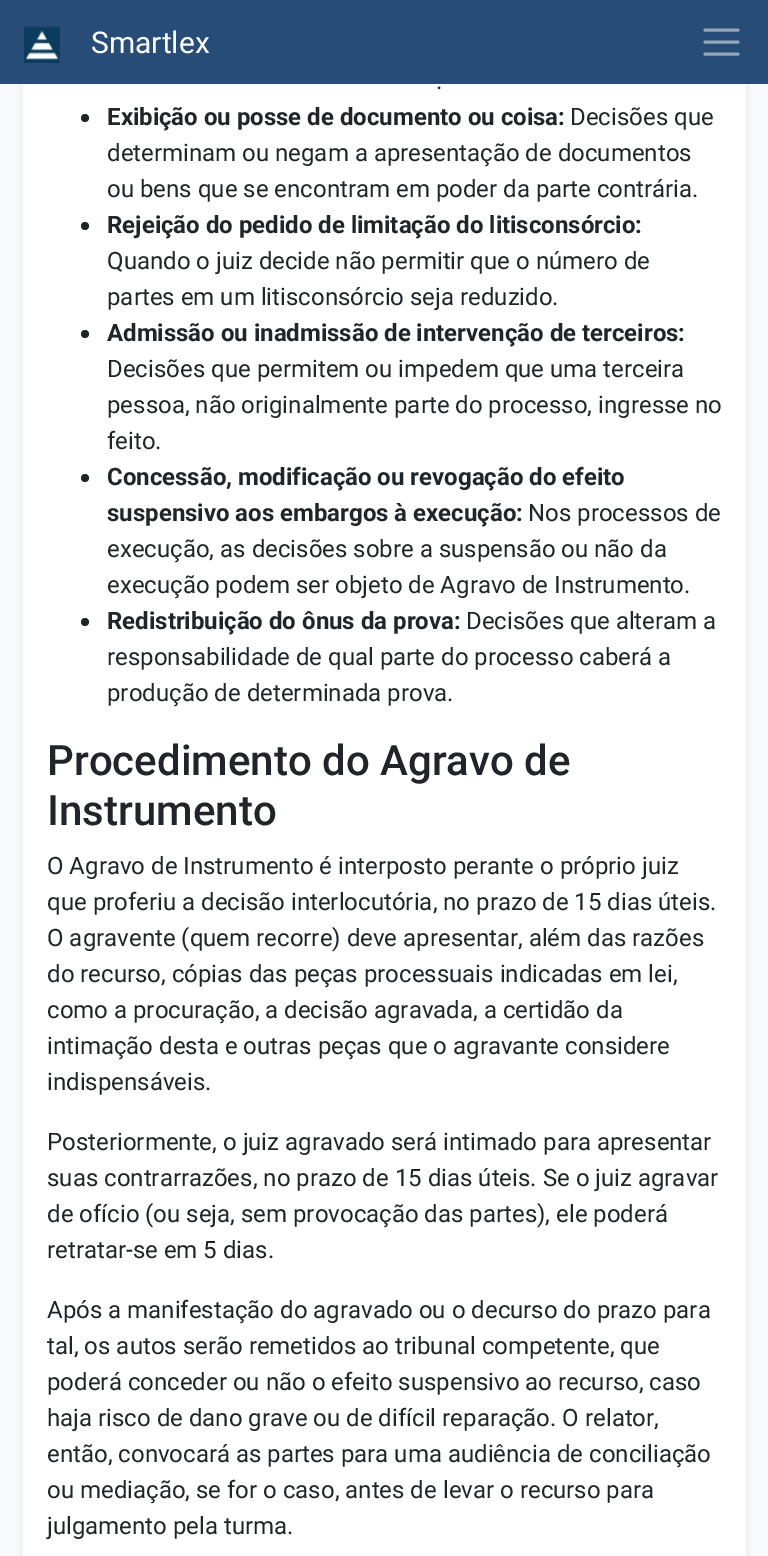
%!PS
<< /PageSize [768 1556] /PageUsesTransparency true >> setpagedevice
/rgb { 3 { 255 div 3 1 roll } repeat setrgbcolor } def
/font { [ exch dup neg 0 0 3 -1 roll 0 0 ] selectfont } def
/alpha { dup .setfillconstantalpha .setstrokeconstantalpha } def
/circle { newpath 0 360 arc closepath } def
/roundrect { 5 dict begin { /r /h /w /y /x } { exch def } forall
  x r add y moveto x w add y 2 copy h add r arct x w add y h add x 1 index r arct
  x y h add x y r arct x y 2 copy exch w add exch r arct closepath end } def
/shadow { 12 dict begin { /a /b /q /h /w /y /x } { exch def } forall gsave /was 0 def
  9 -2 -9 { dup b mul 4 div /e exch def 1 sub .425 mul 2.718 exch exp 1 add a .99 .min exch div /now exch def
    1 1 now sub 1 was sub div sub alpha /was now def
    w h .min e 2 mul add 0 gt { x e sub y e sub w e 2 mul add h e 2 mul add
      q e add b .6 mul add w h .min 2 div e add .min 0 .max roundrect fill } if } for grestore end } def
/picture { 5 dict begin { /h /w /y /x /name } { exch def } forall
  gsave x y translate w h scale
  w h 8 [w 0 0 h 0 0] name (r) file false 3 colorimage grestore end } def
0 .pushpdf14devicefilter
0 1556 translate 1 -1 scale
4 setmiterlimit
248 249 250 rgb
0 0 768 1556 rectfill
0 0 0 rgb
23 -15 723 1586 6 3 0.07 shadow
39 76 119 rgb
0 0 768 84 rectfill
(img/1.rgb) 24 26 36 37 picture
147 166 187 rgb
3 setlinewidth
1 setlinecap
705 30 moveto 738 30 lineto 705 42 moveto 738 42 lineto 705 54 moveto 738 54 lineto stroke
255 255 255 rgb
23 84 723 1472 rectfill
33 37 41 rgb
85 118 4 circle fill
85 226 4 circle fill
85 334 4 circle fill
85 478 4 circle fill
85 622 4 circle fill
/Roboto-Regular 30 font
255 255 255 rgb
91 53 moveto (Smartlex) show
/Roboto-Regular 24 font
33 37 41 rgb
436 89 moveto (.) show
/Roboto-Bold 24 font
107 125 moveto (Exibição ou posse de documento ou coisa:) show
/Roboto-Regular 24 font
[
  [(Decisões que) 570 125]
  [(determinam ou negam a apresentação de documentos) 107 161]
  [(ou bens que se encontram em poder da parte contrária.) 107 197]
] { aload pop moveto show } forall
/Roboto-Bold 24 font
107 233 moveto (Rejeição do pedido de limitação do litisconsórcio:) show
/Roboto-Regular 24 font
107 269 moveto (Quando o juiz decide não permitir que o número de) show
107 305 moveto (partes em um litisconsórcio seja reduzido.) show
/Roboto-Bold 24 font
107 341 moveto (Admissão ou inadmissão de intervenção de terceiros:) show
/Roboto-Regular 24 font
[
  [(Decisões que permitem ou impedem que uma terceira) 107 377]
  [(pessoa, não originalmente parte do processo, ingresse no) 107 413]
  [(feito.) 107 449]
] { aload pop moveto show } forall
/Roboto-Bold 24 font
107 485 moveto (Concessão, modificação ou revogação do efeito) show
107 521 moveto (suspensivo aos embargos à execução:) show
/Roboto-Regular 24 font
[
  [(Nos processos de) 528 521]
  [(execução, as decisões sobre a suspensão ou não da) 107 557]
  [(execução podem ser objeto de Agravo de Instrumento.) 107 593]
] { aload pop moveto show } forall
/Roboto-Bold 24 font
107 629 moveto (Redistribuição do ônus da prova:) show
/Roboto-Regular 24 font
[
  [(Decisões que alteram a) 466 629]
  [(responsabilidade de qual parte do processo caberá a) 107 665]
  [(produção de determinada prova.) 107 701]
] { aload pop moveto show } forall
/Roboto-Medium 42 font
47 775 moveto (Procedimento do Agravo de) show
47 825 moveto (Instrumento) show
/Roboto-Regular 24 font
[
  [(O Agravo de Instrumento é interposto perante o próprio juiz) 47 874]
  [(que proferiu a decisão interlocutória, no prazo de 15 dias úteis.) 47 910]
  [(O agravente \(quem recorre\) deve apresentar, além das razões) 47 946]
  [(do recurso, cópias das peças processuais indicadas em lei,) 47 982]
  [(como a procuração, a decisão agravada, a certidão da) 47 1018]
  [(intimação desta e outras peças que o agravante considere) 47 1054]
  [(indispensáveis.) 47 1090]
  [(Posteriormente, o juiz agravado será intimado para apresentar) 47 1150]
  [(suas contrarrazões, no prazo de 15 dias úteis. Se o juiz agravar) 47 1186]
  [(de ofício \(ou seja, sem provocação das partes\), ele poderá) 47 1222]
  [(retratar-se em 5 dias.) 47 1258]
  [(Após a manifestação do agravado ou o decurso do prazo para) 47 1318]
  [(tal, os autos serão remetidos ao tribunal competente, que) 47 1354]
  [(poderá conceder ou não o efeito suspensivo ao recurso, caso) 47 1390]
  [(haja risco de dano grave ou de difícil reparação. O relator,) 47 1426]
  [(então, convocará as partes para uma audiência de conciliação) 47 1462]
  [(ou mediação, se for o caso, antes de levar o recurso para) 47 1498]
  [(julgamento pela turma.) 47 1534]
] { aload pop moveto show } forall
.poppdf14devicefilter showpage
